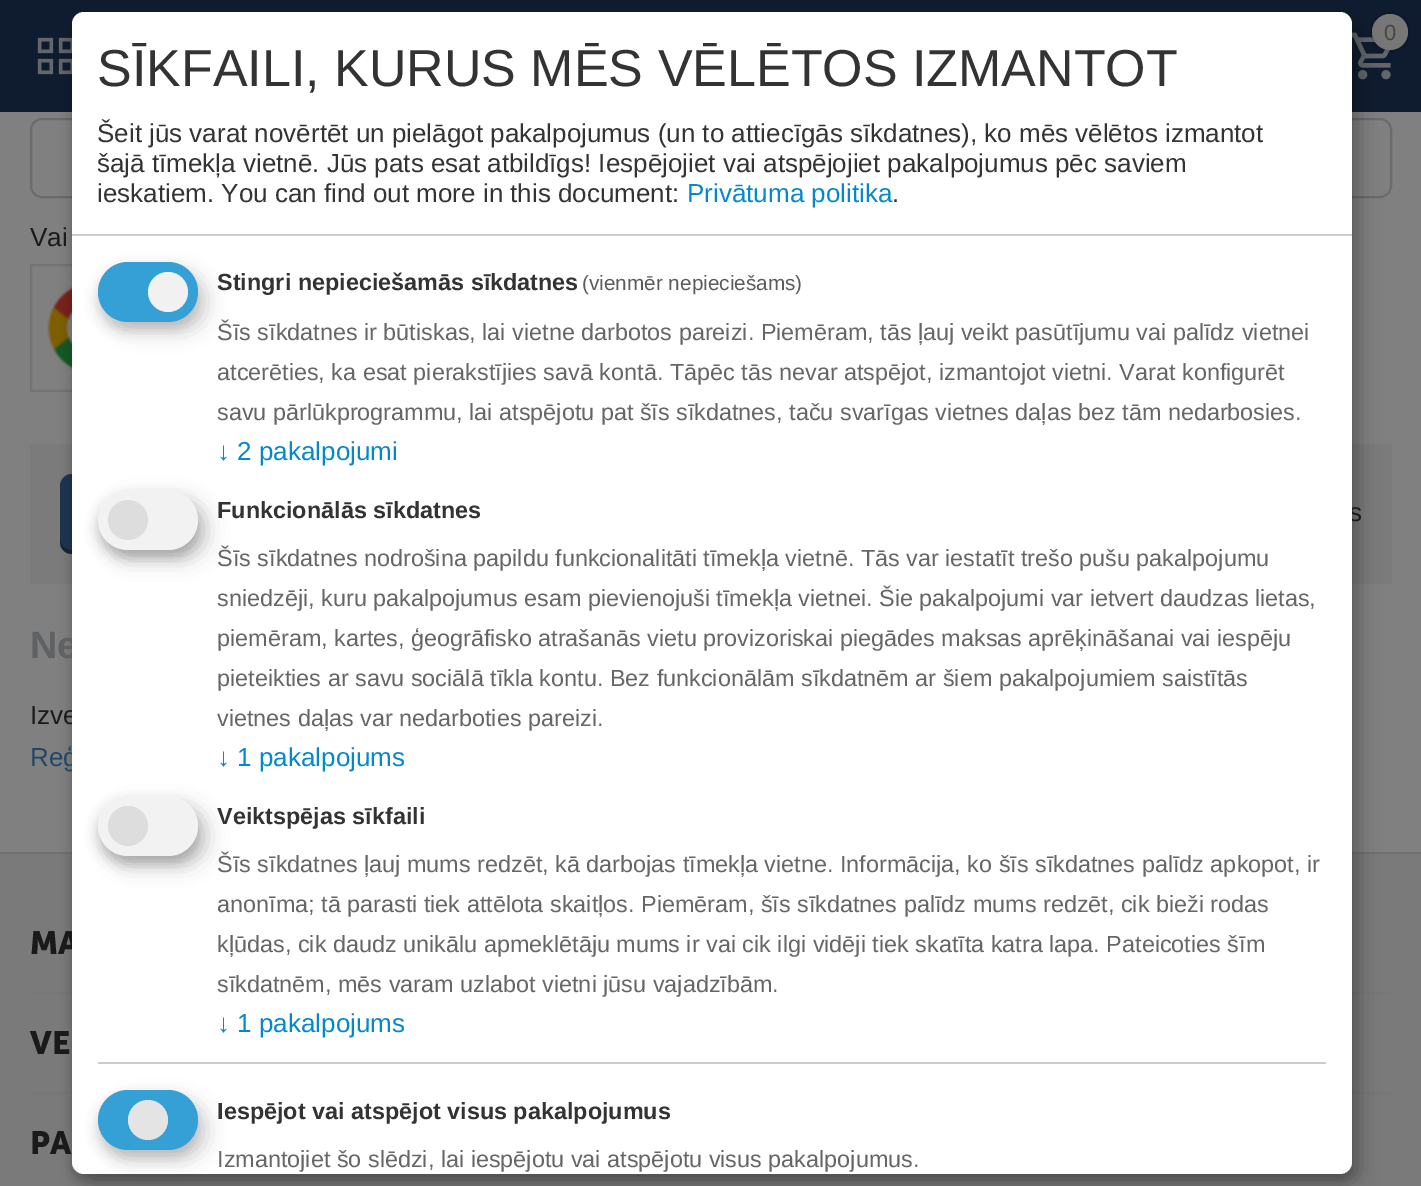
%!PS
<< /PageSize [1421 1186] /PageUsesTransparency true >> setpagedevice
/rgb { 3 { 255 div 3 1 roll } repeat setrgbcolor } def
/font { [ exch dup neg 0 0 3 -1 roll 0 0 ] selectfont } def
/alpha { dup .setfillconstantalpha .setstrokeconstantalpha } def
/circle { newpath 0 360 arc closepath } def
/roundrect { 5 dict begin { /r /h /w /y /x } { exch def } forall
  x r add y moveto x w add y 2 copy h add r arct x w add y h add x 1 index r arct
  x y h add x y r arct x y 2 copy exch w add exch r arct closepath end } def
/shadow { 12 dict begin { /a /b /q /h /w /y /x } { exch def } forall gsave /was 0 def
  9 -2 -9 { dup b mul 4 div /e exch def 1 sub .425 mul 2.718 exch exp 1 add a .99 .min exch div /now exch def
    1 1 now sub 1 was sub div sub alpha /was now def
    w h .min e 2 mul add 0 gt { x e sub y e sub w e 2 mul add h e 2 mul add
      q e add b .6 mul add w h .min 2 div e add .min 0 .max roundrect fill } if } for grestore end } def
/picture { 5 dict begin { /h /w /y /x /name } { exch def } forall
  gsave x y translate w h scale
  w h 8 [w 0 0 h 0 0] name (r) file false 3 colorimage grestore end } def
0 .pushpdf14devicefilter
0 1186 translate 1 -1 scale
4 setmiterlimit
128 128 128 rgb
0 0 1421 1186 rectfill
15 27 47 rgb
0 0 1421 112 rectfill
(img/1.rgb) 1352 32 39 48 picture
0.1 alpha
0 0 0 rgb
2 setlinewidth
1390 32 19 circle stroke
1 alpha
119 119 119 rgb
1390 32 18 circle fill
(img/2.rgb) 37 37 35 38 picture
107 107 107 rgb
31 119 1360 78 11 roundrect stroke
(img/3.rgb) 30 264 42 128 picture
123 123 123 rgb
30 444 1362 140 rectfill
29 52 82 rgb
60 474 170 80 12 roundrect fill
0.3 alpha
0 0 0 rgb
60 538 moveto 60 542 lineto 60 549 65 554 72 554 curveto 218 554 lineto 225 554 230 549 230 542 curveto 230 538 lineto 230 545 225 550 218 550 curveto 72 550 lineto 65 550 60 545 60 538 curveto closepath fill
1 alpha
[
  [0 854 1421 332 122 122 122]
  [0 852 1421 2 113 113 113]
  [30 992 1362 2 119 119 119]
  [30 1092 1362 2 119 119 119]
] { aload pop rgb rectfill } forall
0 0 0 rgb
82 22 1280 1162 12 10 0.19 shadow
72 20 1280 1162 12 6 0.2 shadow
/LiberationSans-Regular 22 font
70 70 70 rgb
1384 40 moveto (0) show
/LiberationSans-Regular 26 font
26 26 26 rgb
30 246 moveto (Vai) show
1349 521 moveto (s) show
/LiberationSans-Bold 38 font
95 98 100 rgb
30 658 moveto (Ne) show
/LiberationSans-Regular 26 font
26 26 26 rgb
30 724 moveto (Izve) show
33 70 101 rgb
30 766 moveto (Reģ) show
/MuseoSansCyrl-Bold 32 font
26 26 26 rgb
[
  [(MA) 30 954]
  [(VE) 30 1054]
  [(PA) 30 1154]
] { aload pop moveto show } forall
255 255 255 rgb
72 12 1280 1162 12 roundrect fill
204 204 204 rgb
72 234 1280 2 rectfill
/LiberationSans-Regular 52 font
51 51 51 rgb
97 86 moveto (SĪKFAILI, KURUS MĒS VĒLĒTOS IZMANTOT) show
/LiberationSans-Regular 26 font
[
  [(Šeit jūs varat novērtēt un pielāgot pakalpojumus \(un to attiecīgās sīkdatnes\), ko mēs vēlētos izmantot) 97 142]
  [(šajā tīmekļa vietnē. Jūs pats esat atbildīgs! Iespējojiet vai atspējojiet pakalpojumus pēc saviem) 97 172]
  [(ieskatiem. You can find out more in this document:) 97 202]
] { aload pop moveto show } forall
3 136 204 rgb
687 202 moveto (Privātuma politika) show
51 51 51 rgb
892 202 moveto (.) show
0 0 0 rgb
108 272 100 60 30 10 0.15 shadow
51 51 51 rgb
98 270 100 60 30 6 0.2 shadow
53 160 214 rgb
98 262 100 60 30 roundrect fill
241 241 241 rgb
168 292 20 circle fill
/LiberationSans-Bold 23.4 font
51 51 51 rgb
217 290 moveto (Stingri nepieciešamās sīkdatnes) show
/LiberationSans-Regular 20.75 font
92 92 92 rgb
582 290 moveto (\(vienmēr nepieciešams\)) show
/LiberationSans-Regular 23.4 font
102 102 102 rgb
[
  [(Šīs sīkdatnes ir būtiskas, lai vietne darbotos pareizi. Piemēram, tās ļauj veikt pasūtījumu vai palīdz vietnei) 217 340]
  [(atcerēties, ka esat pierakstījies savā kontā. Tāpēc tās nevar atspējot, izmantojot vietni. Varat konfigurēt) 217 380]
  [(savu pārlūkprogrammu, lai atspējotu pat šīs sīkdatnes, taču svarīgas vietnes daļas bez tām nedarbosies.) 217 420]
] { aload pop moveto show } forall
/LiberationSans-Regular 26 font
3 136 204 rgb
217 460 moveto (↓ 2 pakalpojumi) show
0 0 0 rgb
108 500 100 60 30 10 0.19 shadow
98 498 100 60 30 6 0.2 shadow
242 242 242 rgb
98 490 100 60 30 roundrect fill
221 221 221 rgb
128 520 20 circle fill
/LiberationSans-Bold 23.4 font
51 51 51 rgb
217 518 moveto (Funkcionālās sīkdatnes) show
/LiberationSans-Regular 23.4 font
102 102 102 rgb
[
  [(Šīs sīkdatnes nodrošina papildu funkcionalitāti tīmekļa vietnē. Tās var iestatīt trešo pušu pakalpojumu) 217 566]
  [(sniedzēji, kuru pakalpojumus esam pievienojuši tīmekļa vietnei. Šie pakalpojumi var ietvert daudzas lietas,) 217 606]
  [(piemēram, kartes, ģeogrāfisko atrašanās vietu provizoriskai piegādes maksas aprēķināšanai vai iespēju) 217 646]
  [(pieteikties ar savu sociālā tīkla kontu. Bez funkcionālām sīkdatnēm ar šiem pakalpojumiem saistītās) 217 686]
  [(vietnes daļas var nedarboties pareizi.) 217 726]
] { aload pop moveto show } forall
/LiberationSans-Regular 26 font
3 136 204 rgb
217 766 moveto (↓ 1 pakalpojums) show
0 0 0 rgb
108 806 100 60 30 10 0.19 shadow
98 804 100 60 30 6 0.2 shadow
242 242 242 rgb
98 796 100 60 30 roundrect fill
221 221 221 rgb
128 826 20 circle fill
/LiberationSans-Bold 23.4 font
51 51 51 rgb
217 824 moveto (Veiktspējas sīkfaili) show
/LiberationSans-Regular 23.4 font
102 102 102 rgb
[
  [(Šīs sīkdatnes ļauj mums redzēt, kā darbojas tīmekļa vietne. Informācija, ko šīs sīkdatnes palīdz apkopot, ir) 217 872]
  [(anonīma; tā parasti tiek attēlota skaitļos. Piemēram, šīs sīkdatnes palīdz mums redzēt, cik bieži rodas) 217 912]
  [(kļūdas, cik daudz unikālu apmeklētāju mums ir vai cik ilgi vidēji tiek skatīta katra lapa. Pateicoties šīm) 217 952]
  [(sīkdatnēm, mēs varam uzlabot vietni jūsu vajadzībām.) 217 992]
] { aload pop moveto show } forall
/LiberationSans-Regular 26 font
3 136 204 rgb
217 1032 moveto (↓ 1 pakalpojums) show
204 204 204 rgb
98 1062 1228 2 rectfill
0 0 0 rgb
108 1100 100 60 30 10 0.15 shadow
51 51 51 rgb
98 1098 100 60 30 6 0.2 shadow
53 160 214 rgb
98 1090 100 60 30 roundrect fill
228 228 228 rgb
148 1120 20 circle fill
/LiberationSans-Bold 23.4 font
51 51 51 rgb
217 1119 moveto (Iespējot vai atspējot visus pakalpojumus) show
/LiberationSans-Regular 23.4 font
102 102 102 rgb
217 1167 moveto (Izmantojiet šo slēdzi, lai iespējotu vai atspējotu visus pakalpojumus.) show
.poppdf14devicefilter showpage
